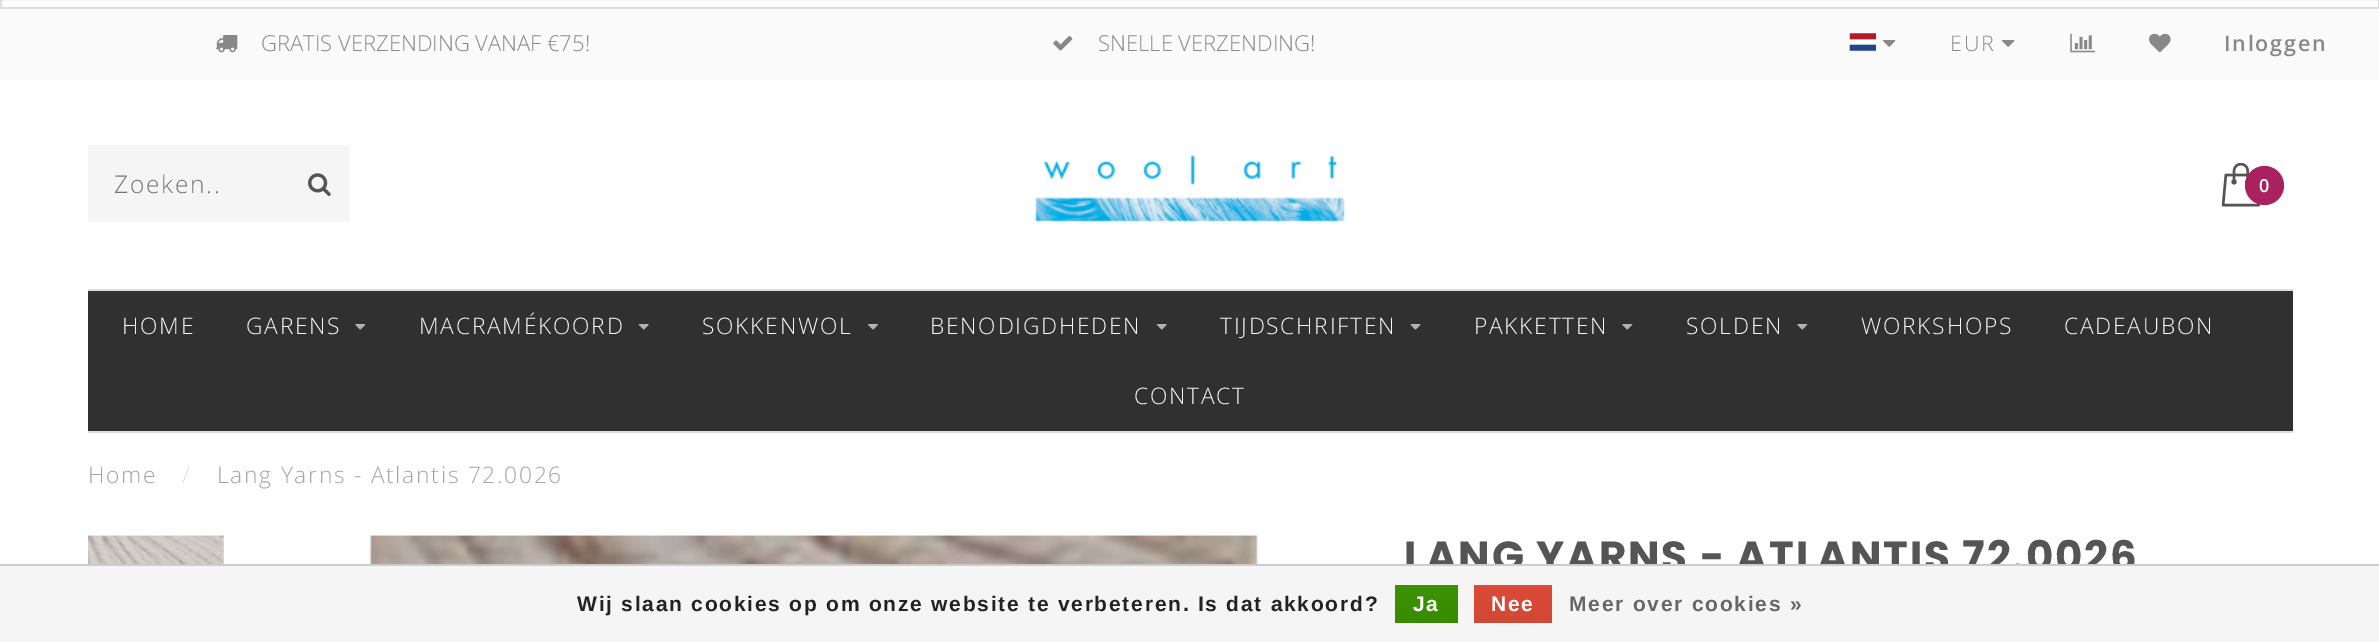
%!PS
<< /PageSize [2379 642] >> setpagedevice
/rgb { 3 { 255 div 3 1 roll } repeat setrgbcolor } def
/font { [ exch dup neg 0 0 3 -1 roll 0 0 ] selectfont } def
/circle { newpath 0 360 arc closepath } def
/picture { 5 dict begin { /h /w /y /x /name } { exch def } forall
  gsave x y translate w h scale
  w h 8 [w 0 0 h 0 0] name (r) file false 3 colorimage grestore end } def
0 642 translate 1 -1 scale
4 setmiterlimit
255 255 255 rgb
0 0 2379 642 rectfill
222 222 222 rgb
2 setlinewidth
1 -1 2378 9 rectstroke
250 250 250 rgb
0 9 2379 70 rectfill
(img/1.rgb) 216 35 22 18 picture
(img/2.rgb) 1053 36 20 15 picture
(img/3.rgb) 1849 33 27 18 picture
(img/4.rgb) 1883 40 13 7 picture
(img/4.rgb) 2002 40 13 7 picture
(img/5.rgb) 2070 33 25 20 picture
(img/6.rgb) 2149 33 22 20 picture
245 245 245 rgb
88 145 262 77 rectfill
(img/7.rgb) 308 173 23 23 picture
(img/8.rgb) 1034 155 312 68 picture
(img/9.rgb) 2221 163 39 44 picture
169 33 94 rgb
2264.5 185.5 19.5 circle fill
[
  [88 291 2205 140 48 48 48]
  [88 289 2205 2 221 221 221]
  [88 431 2205 2 221 221 221]
] { aload pop rgb rectfill } forall
(img/10.rgb) 355 324 11 6 picture
(img/11.rgb) 638 324 11 6 picture
(img/12.rgb) 868 324 10 6 picture
(img/11.rgb) 1156 324 11 6 picture
(img/13.rgb) 1410 324 11 6 picture
(img/10.rgb) 1622 324 11 6 picture
(img/10.rgb) 1797 324 11 6 picture
(img/14.rgb) 88 535 136 29 picture
(img/15.rgb) 368 535 894 29 picture
/OpenSans-Light 22 font
136 136 136 rgb
261 51 moveto (GRATIS VERZENDING VANAF €75!) show
1098 51 moveto (SNELLE VERZENDING!) show
/OpenSans-Light 21.5 font
1950 51 moveto 1.75 0 (EUR) ashow
/OpenSans-SemiBold 21.5 font
2224 51 moveto 1.75 0 (Inloggen) ashow
/OpenSans-Light 24.5 font
117 117 117 rgb
114 193 moveto 1.75 0 (Zoeken..) ashow
/OpenSans-SemiBold 18 font
255 255 255 rgb
2259 192 moveto 1.75 0 (0) ashow
/OpenSans-Light 22.75 font
245 245 245 rgb
122 334 moveto 1.75 0 (HOME) ashow
246 334 moveto 1.75 0 (GARENS) ashow
419 334 moveto 1.75 0 (MACRAMÉKOORD) ashow
702 334 moveto 1.75 0 (SOKKENWOL) ashow
930 334 moveto 1.75 0 (BENODIGDHEDEN) ashow
1220 334 moveto 1.75 0 (TIJDSCHRIFTEN) ashow
1474 334 moveto 1.75 0 (PAKKETTEN) ashow
1686 334 moveto 1.75 0 (SOLDEN) ashow
1861 334 moveto 1.75 0 (WORKSHOPS) ashow
2064 334 moveto 1.75 0 (CADEAUBON) ashow
1134 404 moveto 1.75 0 (CONTACT) ashow
165 165 165 rgb
88 483 moveto 1.75 0 (Home) ashow
221 221 221 rgb
182 483 moveto 1.75 0 (/) ashow
165 165 165 rgb
217 483 moveto 1.75 0 (Lang Yarns - Atlantis 72.0026) ashow
/Poppins-Bold 42 font
85 85 85 rgb
1404 571 moveto 1.75 0 (LANG YARNS - ATLANTIS 72.0026) ashow
245 245 245 rgb
0 566 2379 76 rectfill
204 204 204 rgb
0 564 2379 2 rectfill
/LiberationSans-Bold 21 font
34 34 34 rgb
577 611 moveto 1.75 0 (Wij slaan cookies op om onze website te verbeteren. Is dat akkoord?) ashow
gsave 1395 585 moveto 1458 585 lineto 1458 623 lineto 1395 623 lineto closepath clip newpath
<< /ShadingType 2 /ColorSpace /DeviceRGB /Coords [1426 585 1426 623] /Extend [true true] /Function << /FunctionType 2 /Domain [0 1] /C0 [0.235 0.576 0] /C1 [0.224 0.541 0] /N 1 >> >> shfill grestore
255 255 255 rgb
1413 611 moveto 1.75 0 (Ja) ashow
gsave 1474 585 moveto 1552 585 lineto 1552 623 lineto 1474 623 lineto closepath clip newpath
<< /ShadingType 2 /ColorSpace /DeviceRGB /Coords [1513 585 1513 623] /Extend [true true] /Function << /FunctionType 2 /Domain [0 1] /C0 [0.863 0.29 0.22] /C1 [0.82 0.282 0.212] /N 1 >> >> shfill grestore
1491 611 moveto 1.75 0 (Nee) ashow
102 102 102 rgb
1569 611 moveto 1.75 0 (Meer over cookies ») ashow
showpage
